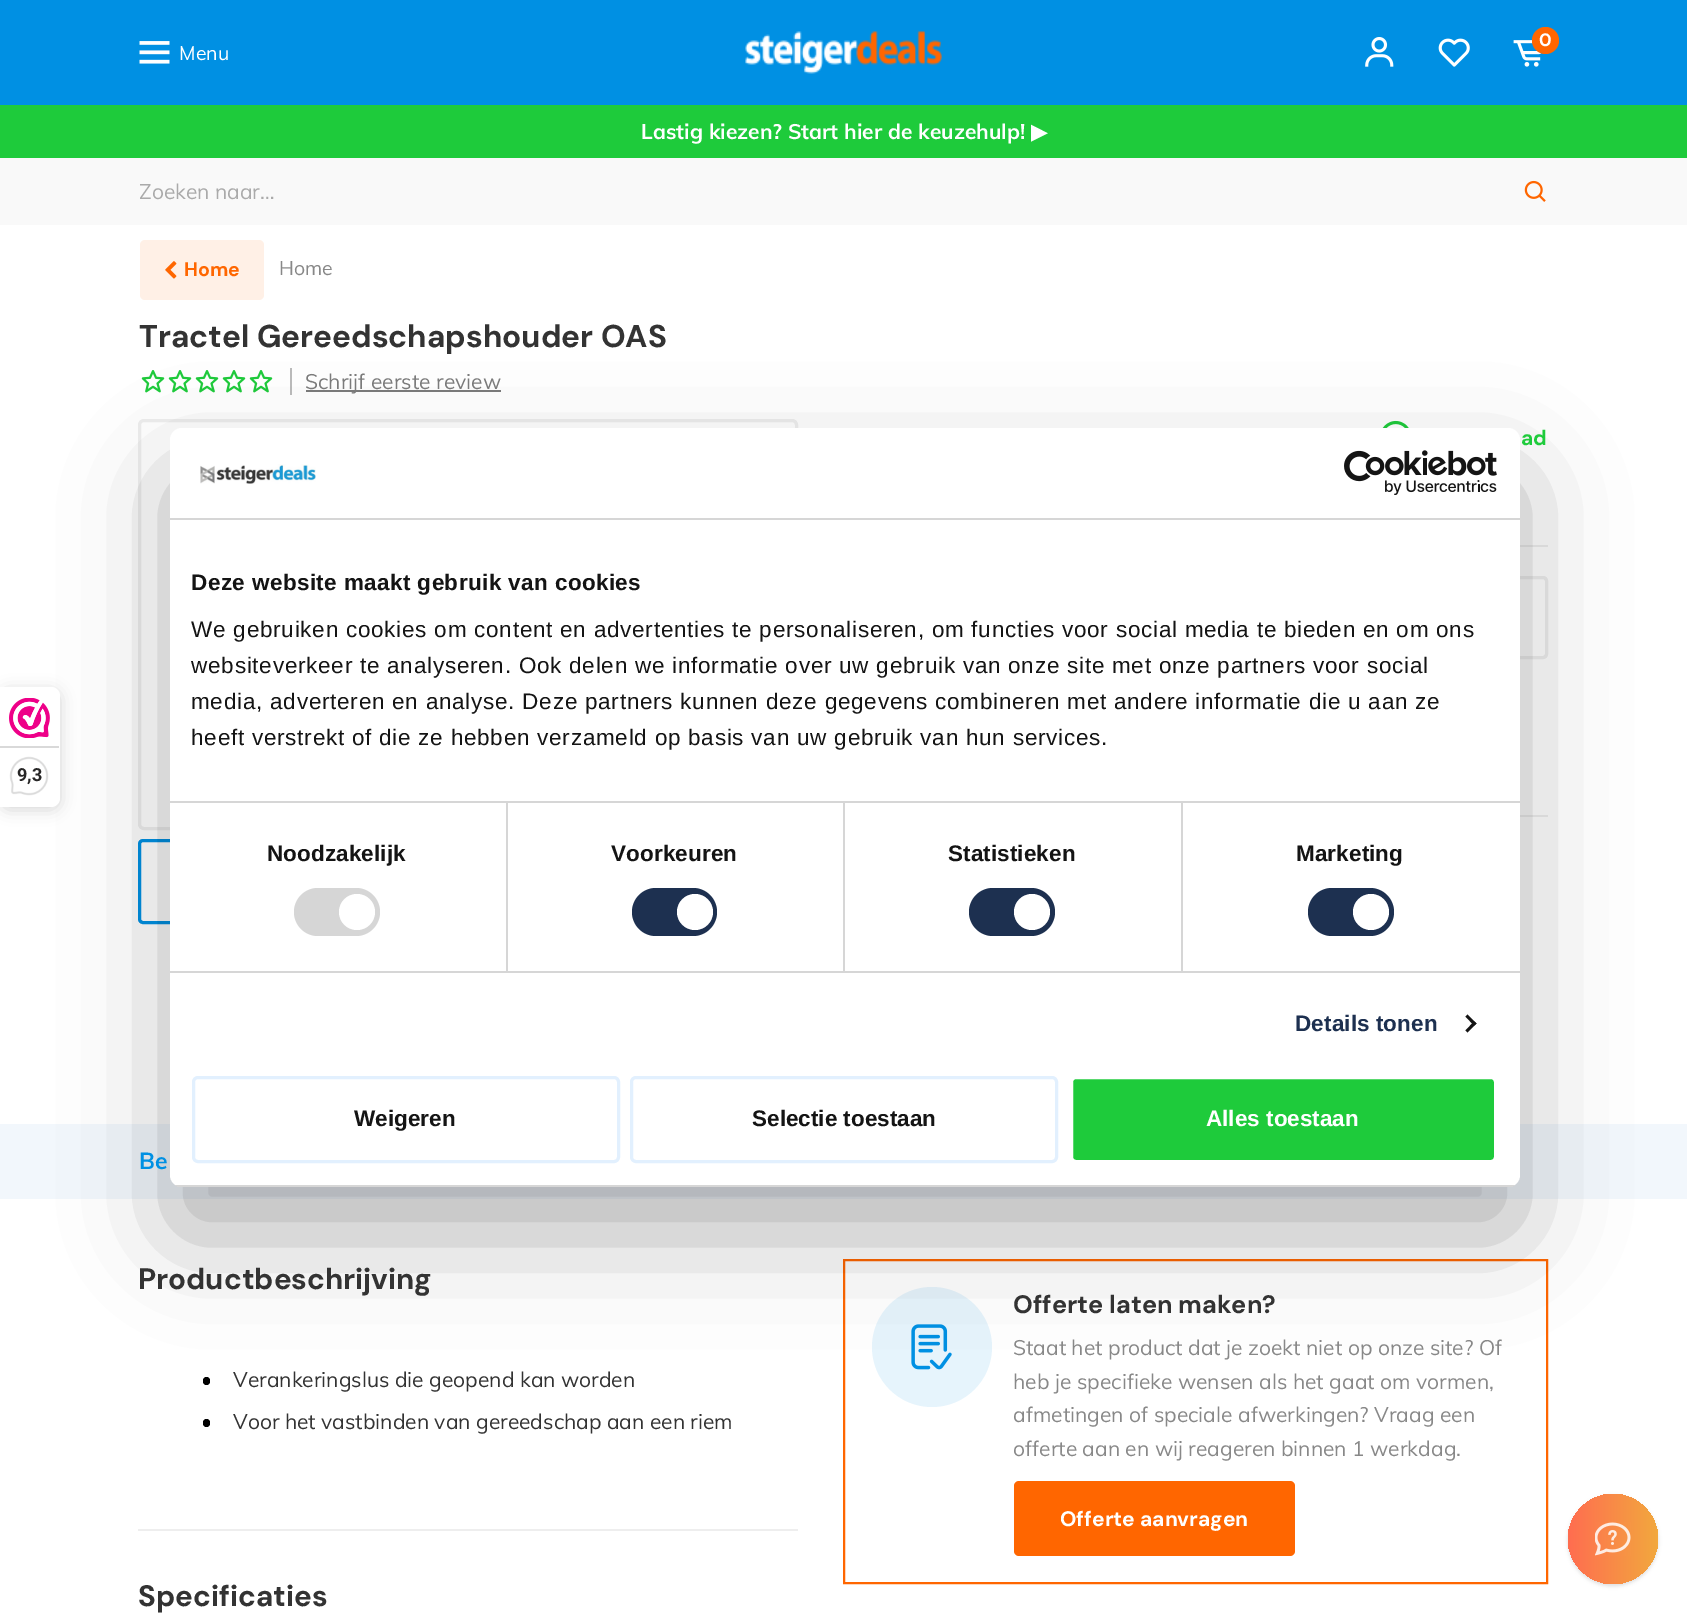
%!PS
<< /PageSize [1687 1614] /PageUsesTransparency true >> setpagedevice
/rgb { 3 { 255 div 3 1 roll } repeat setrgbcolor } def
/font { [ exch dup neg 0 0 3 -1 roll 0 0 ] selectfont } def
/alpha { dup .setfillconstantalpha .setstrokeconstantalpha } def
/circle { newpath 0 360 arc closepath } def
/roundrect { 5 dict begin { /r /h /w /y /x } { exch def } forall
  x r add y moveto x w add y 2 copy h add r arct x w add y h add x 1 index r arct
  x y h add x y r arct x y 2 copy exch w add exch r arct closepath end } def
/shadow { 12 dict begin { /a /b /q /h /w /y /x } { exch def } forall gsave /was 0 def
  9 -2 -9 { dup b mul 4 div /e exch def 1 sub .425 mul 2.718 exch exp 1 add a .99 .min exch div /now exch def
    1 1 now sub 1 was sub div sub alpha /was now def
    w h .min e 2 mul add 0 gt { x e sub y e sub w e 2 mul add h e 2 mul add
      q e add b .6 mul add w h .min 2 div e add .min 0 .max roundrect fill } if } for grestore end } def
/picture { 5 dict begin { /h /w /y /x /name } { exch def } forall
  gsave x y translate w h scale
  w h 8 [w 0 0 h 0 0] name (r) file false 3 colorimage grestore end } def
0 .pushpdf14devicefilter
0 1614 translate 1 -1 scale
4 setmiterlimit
255 255 255 rgb
0 0 1687 1614 rectfill
0 144 227 rgb
0 0 1687 105 rectfill
(img/1.rgb) 745 31 197 43 picture
(img/2.rgb) 1365 37 29 30 picture
(img/3.rgb) 1438 38 32 29 picture
(img/4.rgb) 1513 40 29 27 picture
255 102 0 rgb
1545.5 40.5 13.5 circle fill
(img/5.rgb) 139 41 31 23 picture
30 203 59 rgb
0 105 1687 53 rectfill
249 249 249 rgb
0 158 1687 67 rectfill
(img/6.rgb) 1524 180 22 22 picture
255 240 230 rgb
140 240 124 60 5 roundrect fill
(img/7.rgb) 165 261 12 18 picture
187 187 187 rgb
290 368 2 27 rectfill
(img/8.rgb) 141 370 24 23 picture
(img/8.rgb) 168 370 24 23 picture
(img/8.rgb) 195 370 24 23 picture
(img/8.rgb) 222 370 24 23 picture
(img/8.rgb) 249 370 24 23 picture
123 123 123 rgb
306 390 195 2 rectfill
238 238 238 rgb
3 setlinewidth
139.5 420.5 657 408 4.5 roundrect stroke
0 144 227 rgb
139.5 840.5 84 82 3.5 roundrect stroke
(img/9.rgb) 1382 420 27 8 picture
238 238 238 rgb
1520 545 28 2 rectfill
1467.5 577.5 79 80 3.5 roundrect stroke
1520 815 28 2 rectfill
242 247 252 rgb
0 1124 1687 75 rectfill
0 0 0 rgb
203 1377 7 8 3.5 roundrect fill
203 1419 7 8 3.5 roundrect fill
238 238 238 rgb
138 1529 660 2 rectfill
255 102 0 rgb
2 setlinewidth
844 1260 703 323 rectstroke
230 244 252 rgb
932 1347 60 circle fill
(img/10.rgb) 911 1324 41 46 picture
255 102 0 rgb
1014 1481 281 75 5 roundrect fill
0 0 0 rgb
0 690 60 120 9 7.5 0.15 shadow
170 476 1350 759 12 51 0.3 shadow
255 255 255 rgb
0 687 moveto 51 687 lineto 56 687 60 691 60 696 curveto 60 798 lineto 60 803 56 807 51 807 curveto 0 807 lineto closepath fill
(img/11.rgb) 9 698 41 40 picture
217 217 217 rgb
0 746 59 2 rectfill
(img/12.rgb) 9 756 40 40 picture
255 255 255 rgb
170 428 1350 759 12 roundrect fill
214 214 214 rgb
170 518 1350 2 rectfill
(img/13.rgb) 200 464 116 20 picture
(img/14.rgb) 1344 450 153 45 picture
[
  [170 801 1350 2 214 214 214]
  [170 971 1350 2 214 214 214]
  [506 803 2 168 214 214 214]
] { aload pop rgb rectfill } forall
294 888 86 48 24 roundrect fill
255 255 255 rgb
357 912 18 circle fill
214 214 214 rgb
843 803 2 168 rectfill
29 48 80 rgb
632 888 85 48 24 roundrect fill
255 255 255 rgb
695 912 18 circle fill
214 214 214 rgb
1181 803 2 168 rectfill
29 48 80 rgb
969 888 86 48 24 roundrect fill
255 255 255 rgb
1032 912 18 circle fill
29 48 80 rgb
1308 888 86 48 24 roundrect fill
255 255 255 rgb
1371 912 18 circle fill
20 20 20 rgb
1467.5 1014.5 moveto 1476.5 1023.5 lineto 1474 1025.5 lineto 1465.5 1016.5 lineto closepath fill
1474 1021.5 moveto 1476.5 1023.5 lineto 1467.5 1032.5 lineto 1465.5 1030.5 lineto closepath fill
gsave
170 428 1350 759 12 roundrect clip newpath
214 214 214 rgb
170 1185 1350 2 rectfill
grestore
226 240 254 rgb
3 setlinewidth
193.5 1077.5 425 84 4.5 roundrect stroke
631.5 1077.5 425 84 4.5 roundrect stroke
30 203 59 rgb
1071.5 1077.5 424 84 4.5 roundrect gsave fill grestore
255 255 255 rgb
stroke
41 41 41 rgb
1568 1496 90 90 45 1.5 0.06 shadow
1568 1496 90 90 45 2 0.1 shadow
gsave 1613 1539 45 circle clip newpath
<< /ShadingType 2 /ColorSpace /DeviceRGB /Coords [1568 1539 1658 1539] /Extend [true true] /Function << /FunctionType 2 /Domain [0 1] /C0 [1 0.427 0.314] /C1 [0.949 0.659 0.243] /N 1 >> >> shfill grestore
(img/15.rgb) 1595 1522 36 34 picture
/DMSans-Bold 18 font
255 255 255 rgb
1539 46 moveto (0) show
/Muli-Regular 19.5 font
179 60 moveto (Menu) show
/Muli-Bold 21 font
641 139 moveto (Lastig kiezen? Start hier de keuzehulp!) show
/DejaVuSans-Bold 21 font
1031 139 moveto (▶) show
gsave
140 179 1365 27 rectclip
/Muli-Regular 21 font
170 170 170 rgb
139 199 moveto (Zoeken naar…) show
grestore
/DMSans-Bold 19.5 font
255 102 0 rgb
184 276 moveto (Home) show
/Muli-Regular 19.5 font
136 136 136 rgb
279 275 moveto (Home) show
/DMSans-Bold 31.5 font
51 51 51 rgb
139 347 moveto (Tractel Gereedschapshouder OAS) show
/Muli-Regular 21 font
123 123 123 rgb
305 389 moveto (Schrijf eerste review) show
/DMSans-Bold 21 font
30 203 59 rgb
1521 445 moveto (ad) show
/Muli-Bold 23 font
0 144 227 rgb
139 1169 moveto (Be) show
/DMSans-Bold 29.5 font
51 51 51 rgb
138 1289 moveto (Productbeschrijving) show
/Muli-Regular 21 font
233 1387 moveto (Verankeringslus die geopend kan worden) show
233 1429 moveto (Voor het vastbinden van gereedschap aan een riem) show
/DMSans-Bold 29.5 font
138 1606 moveto (Specificaties) show
/DMSans-Bold 25.25 font
1013 1313 moveto (Offerte laten maken?) show
/Muli-Regular 21 font
136 136 136 rgb
[
  [(Staat het product dat je zoekt niet op onze site? Of) 1013 1355]
  [(heb je specifieke wensen als het gaat om vormen,) 1013 1389]
  [(afmetingen of speciale afwerkingen? Vraag een) 1013 1422]
  [(offerte aan en wij reageren binnen 1 werkdag.) 1013 1456]
] { aload pop moveto show } forall
/DMSans-Bold 21 font
255 255 255 rgb
1060 1526 moveto (Offerte aanvragen) show
/Roboto-Bold 18 font
39 38 38 rgb
17 781 moveto (9,3) show
/LiberationSans-Bold 22.5 font
20 20 20 rgb
191 590 moveto 0.4 0 (Deze website maakt gebruik van cookies) ashow
/LiberationSans-Regular 22.5 font
191 637 moveto 0.75 0 (We gebruiken cookies om content en advertenties te personaliseren, om functies voor social media te bieden en om ons) ashow
191 673 moveto 0.75 0 (websiteverkeer te analyseren. Ook delen we informatie over uw gebruik van onze site met onze partners voor social) ashow
191 709 moveto 0.75 0 (media, adverteren en analyse. Deze partners kunnen deze gegevens combineren met andere informatie die u aan ze) ashow
191 745 moveto 0.75 0 (heeft verstrekt of die ze hebben verzameld op basis van uw gebruik van hun services.) ashow
/LiberationSans-Bold 22.5 font
267 861 moveto 0.1 0 (Noodzakelijk) ashow
611 861 moveto 0.1 0 (Voorkeuren) ashow
948 861 moveto 0.1 0 (Statistieken) ashow
1296 861 moveto 0.1 0 (Marketing) ashow
29 48 80 rgb
1295 1031 moveto 0.1 0 (Details tonen) ashow
20 20 20 rgb
354 1126 moveto (Weigeren) show
752 1126 moveto (Selectie toestaan) show
255 255 255 rgb
1206 1126 moveto (Alles toestaan) show
.poppdf14devicefilter showpage
